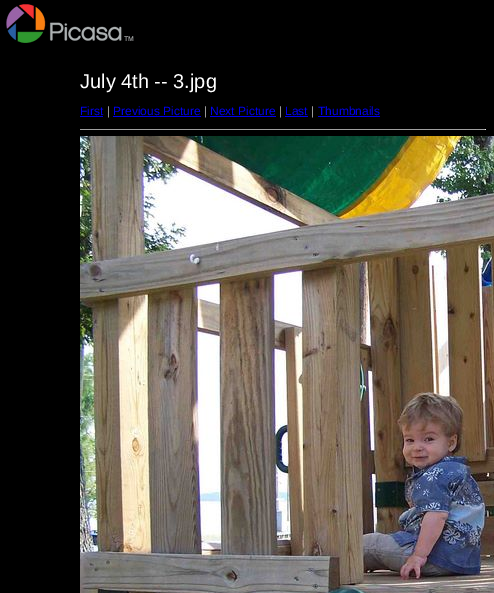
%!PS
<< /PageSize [494 593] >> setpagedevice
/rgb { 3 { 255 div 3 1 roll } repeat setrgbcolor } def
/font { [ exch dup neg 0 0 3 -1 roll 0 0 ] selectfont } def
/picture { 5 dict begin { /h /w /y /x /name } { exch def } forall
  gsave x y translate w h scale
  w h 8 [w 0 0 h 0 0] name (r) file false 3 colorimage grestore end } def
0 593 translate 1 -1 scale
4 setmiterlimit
0 0 0 rgb
0 0 494 593 rectfill
(img/1.rgb) 6 4 128 39 picture
[
  [80 116 23 1 0 0 238]
  [113 116 88 1 0 0 238]
  [210 116 66 1 0 0 238]
  [285 116 23 1 0 0 238]
  [318 116 62 1 0 0 238]
  [80 129 406 1 159 159 159]
  [485 129 1 1 238 238 238]
] { aload pop rgb rectfill } forall
(img/2.rgb) 80 136 414 457 picture
/LiberationSans-Regular 20 font
255 255 255 rgb
80 88 moveto (July 4th -- 3.jpg) show
/LiberationSans-Regular 12 font
0 0 238 rgb
80 115 moveto (First) show
153 153 153 rgb
107 115 moveto (|) show
0 0 238 rgb
113 115 moveto (Previous Picture) show
153 153 153 rgb
204 115 moveto (|) show
0 0 238 rgb
210 115 moveto (Next Picture) show
153 153 153 rgb
279 115 moveto (|) show
0 0 238 rgb
285 115 moveto (Last) show
153 153 153 rgb
311 115 moveto (|) show
0 0 238 rgb
318 115 moveto (Thumbnails) show
showpage
